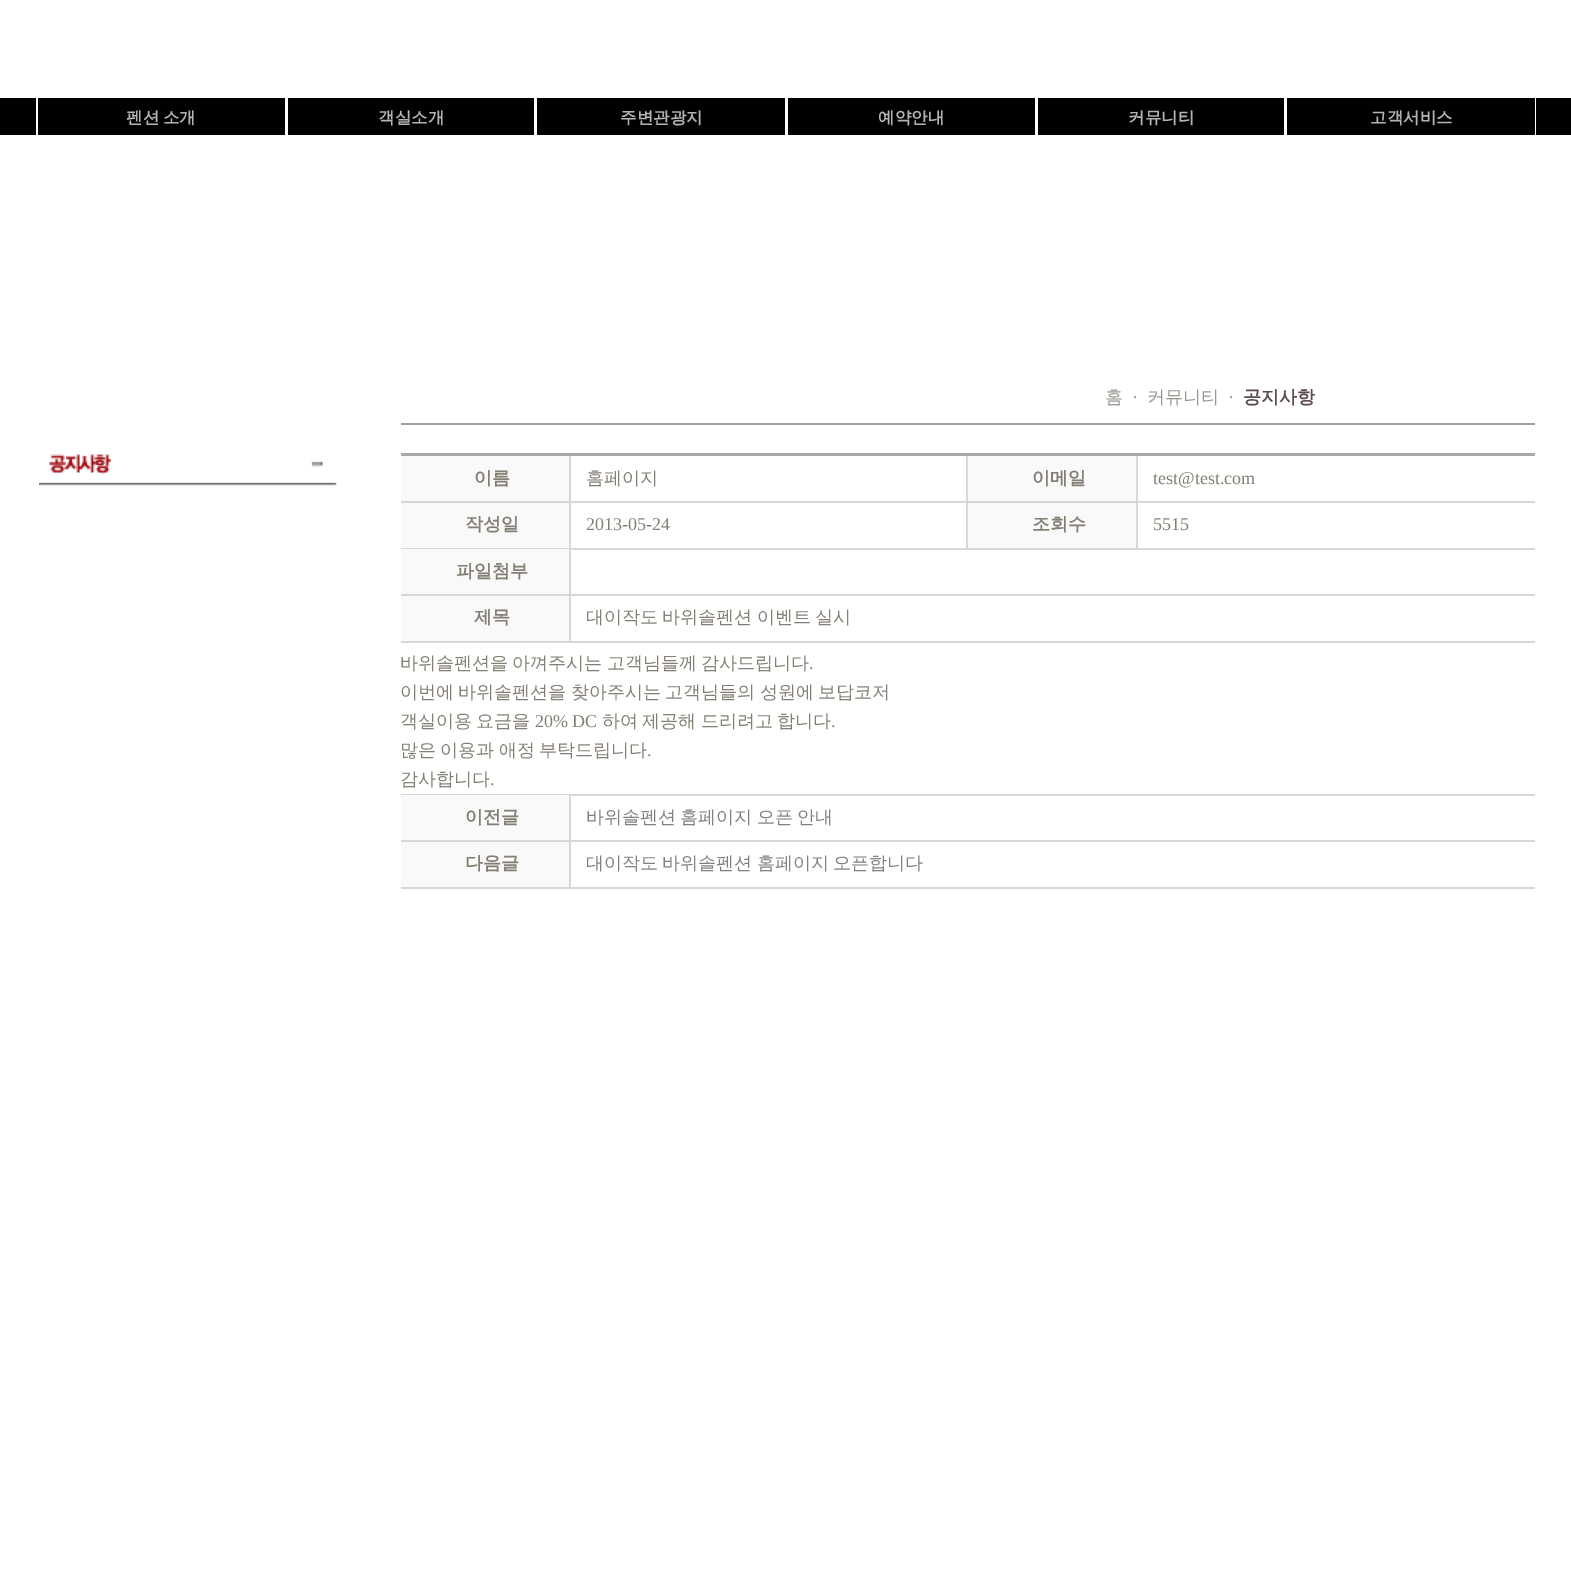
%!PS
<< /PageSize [1571 1592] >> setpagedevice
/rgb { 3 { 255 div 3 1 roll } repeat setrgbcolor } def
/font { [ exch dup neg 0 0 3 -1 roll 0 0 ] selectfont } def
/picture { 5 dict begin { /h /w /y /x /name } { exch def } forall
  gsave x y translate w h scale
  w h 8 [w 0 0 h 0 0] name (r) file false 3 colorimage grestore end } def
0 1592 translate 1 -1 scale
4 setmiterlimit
255 255 255 rgb
0 0 1571 1592 rectfill
[
  [0 98 36 37 0 0 0]
  [38 98 247 37 0 0 0]
  [288 98 246 37 0 0 0]
  [537 98 248 37 0 0 0]
  [788 98 247 37 0 0 0]
  [1038 98 246 37 0 0 0]
  [1287 98 248 37 0 0 0]
  [1536 98 35 37 0 0 0]
] { aload pop rgb rectfill } forall
(img/1.rgb) 39 454 298 32 picture
[
  [401 423 1134 2 162 162 162]
  [401 453 1134 3 169 169 169]
  [401 456 168 45 249 249 249]
  [968 456 168 45 249 249 249]
  [401 501 1134 2 215 215 215]
  [401 503 168 45 249 249 249]
  [401 548 1134 2 215 215 215]
  [966 456 2 93 215 215 215]
  [968 503 168 45 249 249 249]
  [1136 456 2 93 215 215 215]
  [401 549 168 45 249 249 249]
  [401 594 1134 2 215 215 215]
  [401 596 168 45 249 249 249]
  [401 641 1134 2 215 215 215]
  [569 456 2 186 215 215 215]
  [401 794 1134 2 215 215 215]
  [401 795 168 45 249 249 249]
  [401 840 1134 2 215 215 215]
  [401 842 168 45 249 249 249]
  [401 887 1134 2 215 215 215]
  [569 795 2 93 215 215 215]
] { aload pop rgb rectfill } forall
/WenQuanYiZenHei-Bold 16.5 font
179 179 179 rgb
126 123 moveto -1 0 32 (펜션 소개) widthshow
[
  [(객실소개) 378 123]
  [(주변관광지) 620 123]
  [(예약안내) 878 123]
  [(커뮤니티) 1128 123]
  [(고객서비스) 1370 123]
] { aload pop moveto show } forall
/WenQuanYiZenHei-Medium 18 font
153 149 144 rgb
1105 403 moveto (홈) show
/LiberationSerif-Regular 18 font
1132 403 moveto (·) show
/WenQuanYiZenHei-Medium 18 font
1147 403 moveto (커뮤니티) show
/LiberationSerif-Regular 18 font
1228 403 moveto (·) show
/WenQuanYiZenHei-Bold 18 font
92 76 78 rgb
1243 403 moveto (공지사항) show
132 127 116 rgb
474 484 moveto (이름) show
/WenQuanYiZenHei-Medium 18 font
586 484 moveto (홈페이지) show
/WenQuanYiZenHei-Bold 18 font
1032 484 moveto (이메일) show
/LiberationSerif-Regular 18 font
1153 484 moveto (test@test.com) show
/WenQuanYiZenHei-Bold 18 font
465 530 moveto (작성일) show
/LiberationSerif-Regular 18 font
586 530 moveto (2013-05-24) show
/WenQuanYiZenHei-Bold 18 font
1032 530 moveto (조회수) show
/LiberationSerif-Regular 18 font
1153 530 moveto (5515) show
/WenQuanYiZenHei-Bold 18 font
456 577 moveto (파일첨부) show
474 623 moveto (제목) show
/WenQuanYiZenHei-Medium 18 font
586 623 moveto -1 0 32 (대이작도 바위솔펜션 이벤트 실시) widthshow
400 669 moveto -1 0 32 (바위솔펜션을 아껴주시는 고객님들께 감사드립니다) widthshow
/LiberationSerif-Regular 18 font
809 669 moveto (.) show
/WenQuanYiZenHei-Medium 18 font
400 698 moveto -1 0 32 (이번에 바위솔펜션을 찾아주시는 고객님들의 성원에 보답코저) widthshow
400 727 moveto (객실이용) show
476 727 moveto (요금을) show
/LiberationSerif-Regular 18 font
535 727 moveto (20% DC) show
/WenQuanYiZenHei-Medium 18 font
[
  [(하여) 602 727]
  [(제공해) 642 727]
  [(드리려고) 701 727]
  [(합니다) 777 727]
] { aload pop moveto show } forall
/LiberationSerif-Regular 18 font
831 727 moveto (.) show
/WenQuanYiZenHei-Medium 18 font
400 756 moveto -1 0 32 (많은 이용과 애정 부탁드립니다) widthshow
/LiberationSerif-Regular 18 font
647 756 moveto (.) show
/WenQuanYiZenHei-Medium 18 font
400 785 moveto (감사합니다) show
/LiberationSerif-Regular 18 font
490 785 moveto (.) show
/WenQuanYiZenHei-Bold 18 font
465 823 moveto (이전글) show
/WenQuanYiZenHei-Medium 18 font
131 128 125 rgb
586 823 moveto -1 0 32 (바위솔펜션 홈페이지 오픈 안내) widthshow
/WenQuanYiZenHei-Bold 18 font
132 127 116 rgb
465 869 moveto (다음글) show
/WenQuanYiZenHei-Medium 18 font
131 128 125 rgb
586 869 moveto -1 0 32 (대이작도 바위솔펜션 홈페이지 오픈합니다) widthshow
showpage
